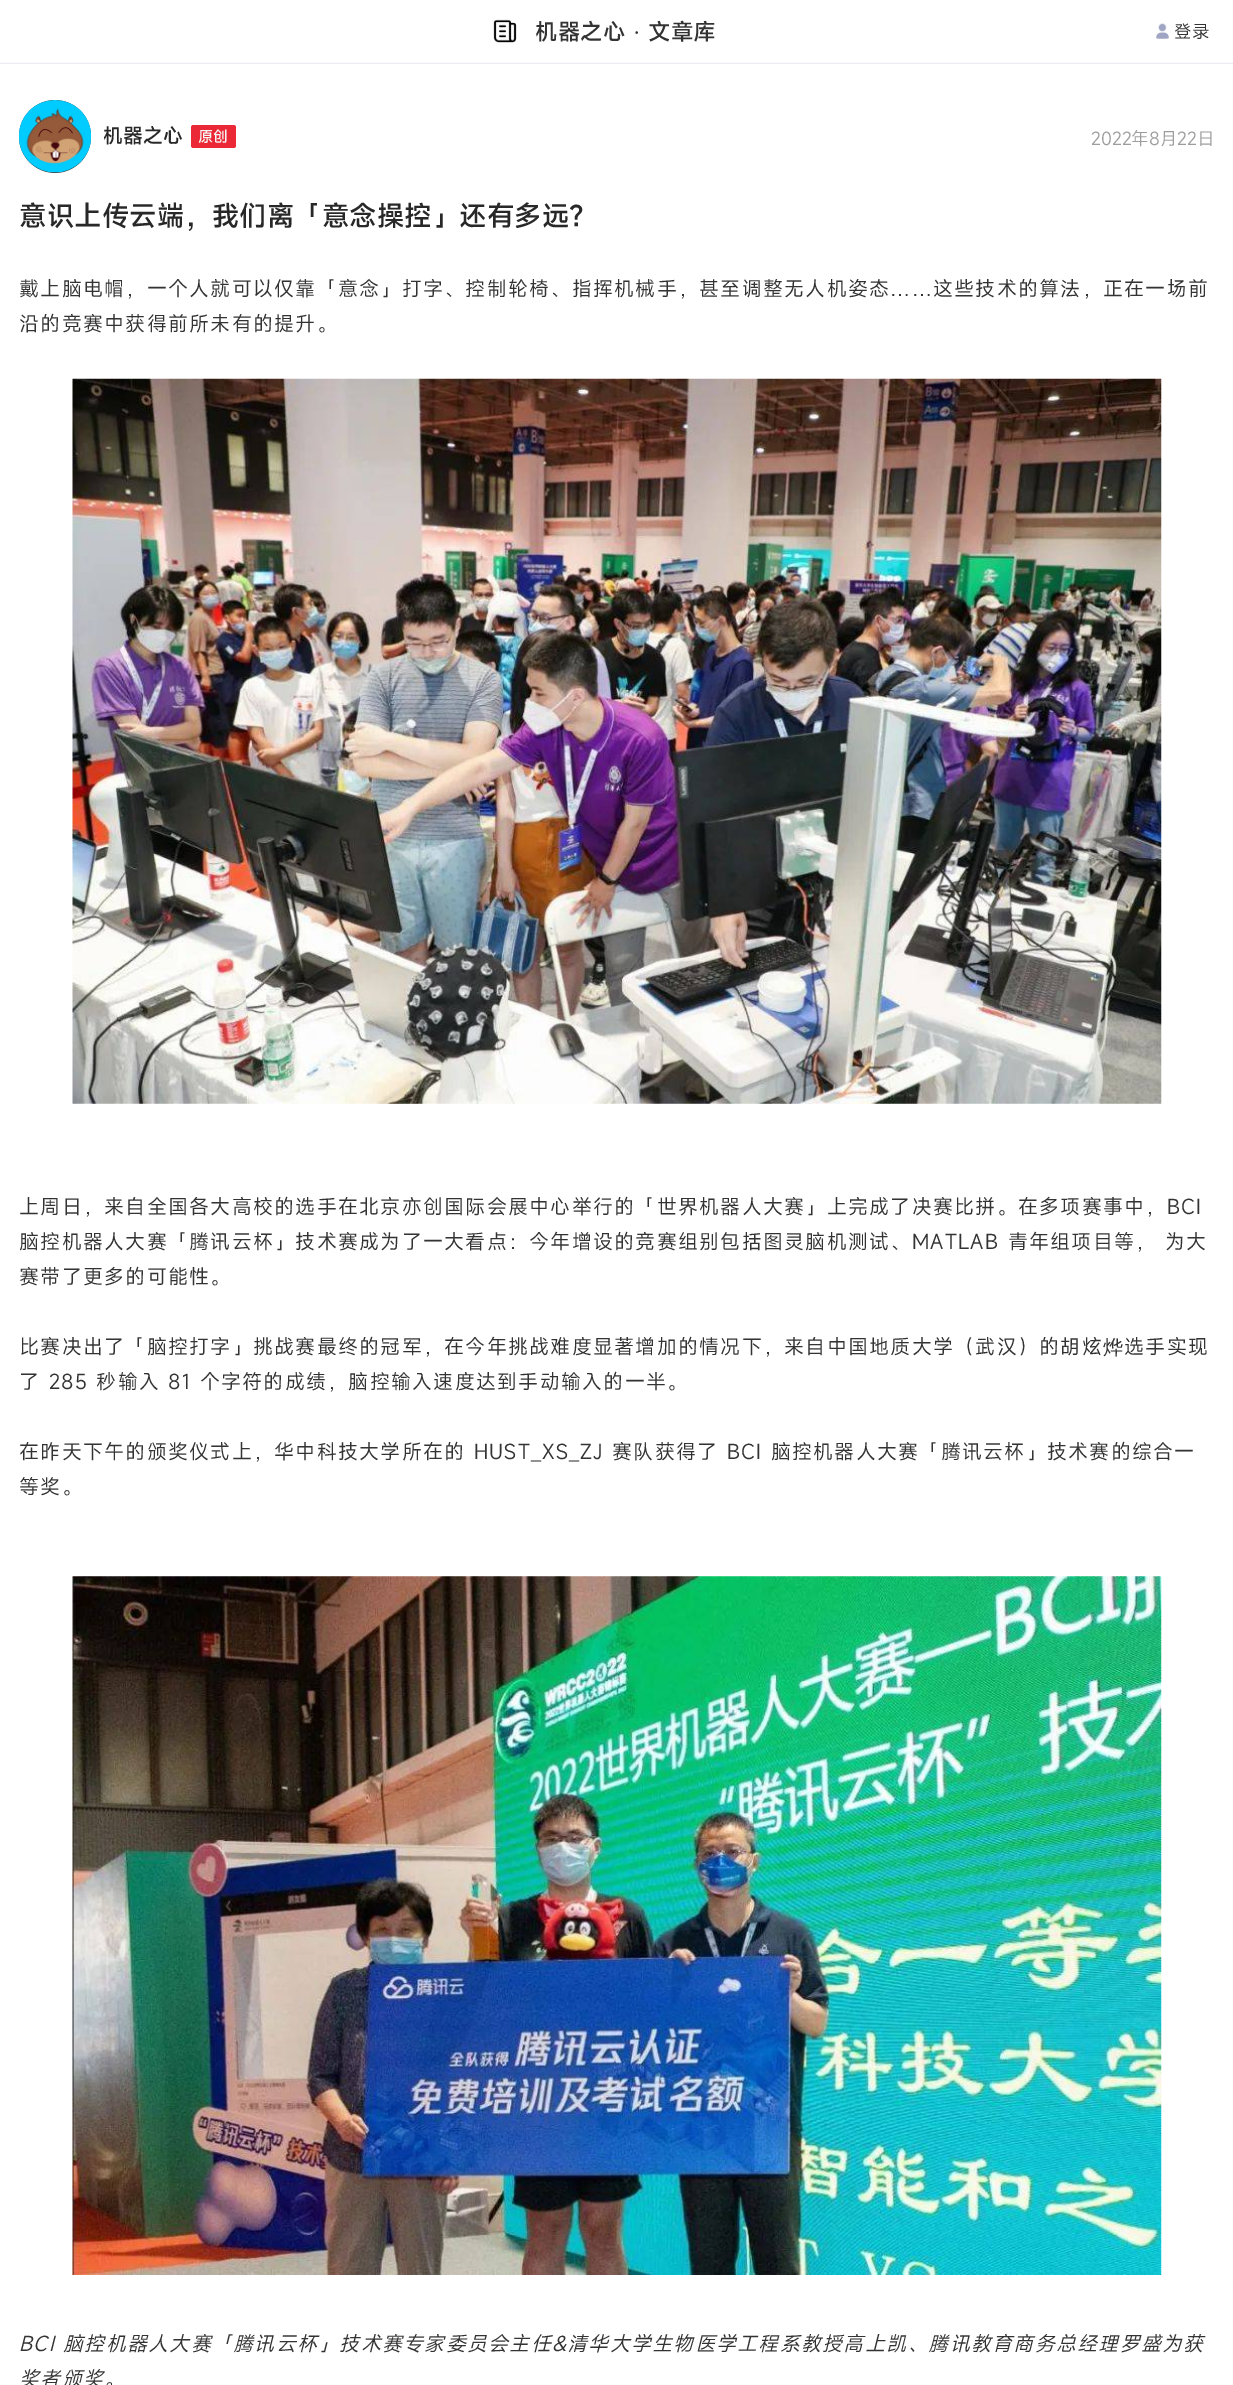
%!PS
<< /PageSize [1233 2385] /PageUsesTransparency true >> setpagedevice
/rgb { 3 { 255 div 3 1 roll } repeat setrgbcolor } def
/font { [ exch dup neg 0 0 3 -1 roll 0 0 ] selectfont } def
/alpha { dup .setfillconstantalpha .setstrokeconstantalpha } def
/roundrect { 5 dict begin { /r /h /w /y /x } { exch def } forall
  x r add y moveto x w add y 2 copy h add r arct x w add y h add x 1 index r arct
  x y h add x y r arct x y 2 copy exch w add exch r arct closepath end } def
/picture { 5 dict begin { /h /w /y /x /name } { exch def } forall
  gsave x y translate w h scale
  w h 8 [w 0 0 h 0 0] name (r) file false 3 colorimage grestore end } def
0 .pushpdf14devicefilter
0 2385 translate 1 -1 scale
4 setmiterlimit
255 255 255 rgb
0 0 1233 2385 rectfill
235 236 241 rgb
0 62 moveto 0 64 lineto 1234 64 lineto 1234 1 lineto 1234 62 lineto closepath fill
0.8 alpha
255 255 255 rgb
0 62 1233 1 rectfill
1 alpha
(img/1.rgb) 493 19 24 24 picture
(img/2.rgb) 1156 23 13 16 picture
51 51 51 rgb
19 100 72 73 36 roundrect fill
(img/3.rgb) 18 100 74 73 picture
235 40 53 rgb
191 125 45 23 2.5 roundrect fill
(img/4.rgb) 72 378 1090 726 picture
(img/5.rgb) 72 1576 1090 699 picture
/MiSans-Medium 22.5 font
51 51 51 rgb
535 40 moveto (机器之心) show
/LiberationSerif-Regular 22.5 font
633 40 moveto (·) show
/MiSans-Medium 22.5 font
648 40 moveto (文章库) show
/MiSans-Regular 17.5 font
1174 38 moveto (登录) show
/MiSans-Medium 20 font
40 40 40 rgb
103 143 moveto (机器之心) show
/MiSans-Medium 15 font
246 246 246 rgb
198 142 moveto (原创) show
/MiSans-Regular 17.5 font
157 157 157 rgb
1091 145 moveto (2022年8月22日) show
/MiSans-Medium 27.5 font
40 40 40 rgb
19 226 moveto (意识上传云端，我们离「意念操控」还有多远？) show
/MiSans-Regular 20 font
51 51 51 rgb
19 296 moveto 1.25 0 (戴上脑电帽，一个人就可以仅靠「意念」打字、控制轮椅、指挥机械手，甚至调整无人机姿态……这些技术的算法，正在一场前) ashow
19 331 moveto 1.25 0 (沿的竞赛中获得前所未有的提升。) ashow
19 1214 moveto 1.25 0 (上周日，来自全国各大高校的选手在北京亦创国际会展中心举行的「世界机器人大赛」上完成了决赛比拼。在多项赛事中，BCI) ashow
19 1249 moveto 1.25 0 (脑控机器人大赛「腾讯云杯」技术赛成为了一大看点：今年增设的竞赛组别包括图灵脑机测试、MATLAB 青年组项目等， 为大) ashow
19 1284 moveto 1.25 0 (赛带了更多的可能性。) ashow
19 1354 moveto 1.25 0 (比赛决出了「脑控打字」挑战赛最终的冠军，在今年挑战难度显著增加的情况下，来自中国地质大学（武汉）的胡炫) ashow
/WenQuanYiZenHei-Medium 20 font
1103 1354 moveto 1.25 0 (烨) ashow
/MiSans-Regular 20 font
1124 1354 moveto 1.25 0 (选手实现) ashow
19 1389 moveto 1.25 0 (了 285 秒输入 81 个字符的成绩，脑控输入速度达到手动输入的一半。) ashow
19 1459 moveto 1.25 0 (在昨天下午的颁奖仪式上，华中科技大学所在的 HUST) ashow
542 1459 moveto 1.25 0 (XS) ashow
580 1459 moveto 1.25 0 (ZJ 赛队获得了 BCI 脑控机器人大赛「腾讯云杯」技术赛的综合一) ashow
/LiberationSerif-Regular 20 font
531 1459 moveto 1.25 0 (_) ashow
569 1459 moveto 1.25 0 (_) ashow
/MiSans-Regular 20 font
19 1494 moveto 1.25 0 (等奖。) ashow
/MiSans-Italic 20 font
19 2351 moveto 1.25 0 (BCI 脑控机器人大赛「腾讯云杯」技术赛专家委员会主任&清华大学生物医学工程系教授高上凯、腾讯教育商务总经理罗盛为获) ashow
19 2386 moveto 1.25 0 (奖者颁奖。) ashow
.poppdf14devicefilter showpage
